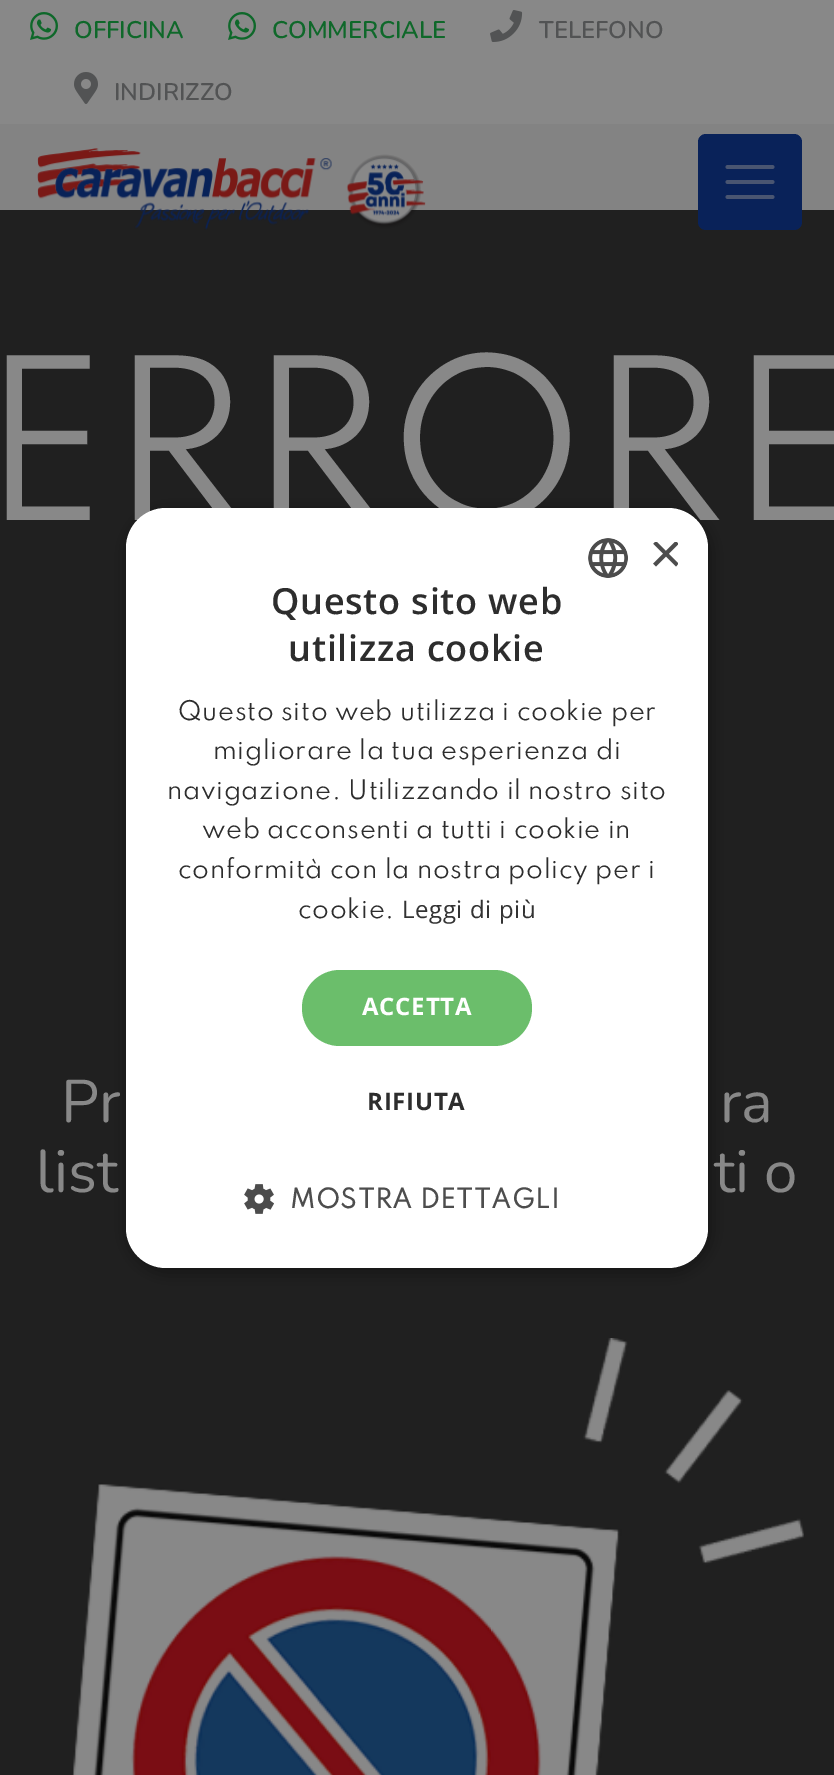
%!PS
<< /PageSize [834 1775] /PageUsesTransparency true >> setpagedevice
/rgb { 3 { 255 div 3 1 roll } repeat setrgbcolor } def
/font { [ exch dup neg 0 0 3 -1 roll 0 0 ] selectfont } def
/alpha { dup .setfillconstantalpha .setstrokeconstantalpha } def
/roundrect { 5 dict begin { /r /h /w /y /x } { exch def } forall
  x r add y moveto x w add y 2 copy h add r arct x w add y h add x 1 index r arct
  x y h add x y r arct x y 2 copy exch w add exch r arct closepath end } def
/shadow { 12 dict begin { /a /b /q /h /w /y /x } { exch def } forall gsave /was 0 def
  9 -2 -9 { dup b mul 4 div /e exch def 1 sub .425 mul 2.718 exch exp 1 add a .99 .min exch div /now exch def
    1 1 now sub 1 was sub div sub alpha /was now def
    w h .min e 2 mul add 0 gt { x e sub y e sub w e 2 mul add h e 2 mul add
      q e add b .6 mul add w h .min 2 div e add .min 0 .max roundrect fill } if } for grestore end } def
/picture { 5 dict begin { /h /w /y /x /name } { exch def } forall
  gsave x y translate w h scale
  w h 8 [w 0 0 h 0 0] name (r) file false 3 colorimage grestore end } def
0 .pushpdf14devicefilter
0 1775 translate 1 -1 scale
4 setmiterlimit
32 32 32 rgb
0 0 834 1775 rectfill
131 131 131 rgb
0 124 834 86 rectfill
136 136 136 rgb
0 0 834 124 rectfill
(img/1.rgb) 30 12 28 28 picture
(img/1.rgb) 228 12 28 28 picture
(img/2.rgb) 490 10 33 32 picture
(img/3.rgb) 74 72 24 32 picture
(img/4.rgb) 37 148 389 82 picture
9 34 89 rgb
698 134 104 96 8 roundrect fill
73 85 113 rgb
3.8 setlinewidth
1 setlinecap
727.5 167 moveto 772.5 167 lineto 727.5 182 moveto 772.5 182 lineto 727.5 197 moveto 772.5 197 lineto stroke
(img/5.rgb) 72 1338 732 437 picture
0 0 0 rgb
128 512 582 760 40 8 0.35 shadow
/Nunito-SemiBold 24 font
15 104 42 rgb
74 38 moveto (OFFICINA) show
272 38 moveto (COMMERCIALE) show
82 83 84 rgb
539 38 moveto (TELEFONO) show
114 100 moveto (INDIRIZZO) show
/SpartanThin-Thin 200 font
136 136 136 rgb
-20 520 moveto (ERRORE) show
/Nunito-Regular 60 font
[
  [(Pr) 61 1122]
  [(ra) 720 1122]
  [(list) 36 1192]
  [(ti o) 714 1192]
] { aload pop moveto show } forall
255 255 255 rgb
126 508 582 760 40 roundrect fill
(img/6.rgb) 588 538 40 40 picture
gsave
648 542 30 30 rectclip
/LiberationSans-Regular 58 font
77 77 77 rgb
649 573 moveto (×) show
grestore
/OpenSans-SemiBold 36 font
45 45 45 rgb
271 614 moveto 0.75 0 (Questo sito web) ashow
288 661 moveto 0.75 0 (utilizza cookie) ashow
/SpartanThin-Thin 24 font
178 720 moveto 0.6 0 (Questo sito web utilizza i cookie per) ashow
213 759 moveto 0.6 0 (migliorare la tua esperienza di) ashow
167 799 moveto 0.6 0 (navigazione. Utilizzando il nostro sito) ashow
202 838 moveto 0.6 0 (web acconsenti a tutti i cookie in) ashow
178 878 moveto 0.6 0 (conformità con la nostra policy per i) ashow
298 918 moveto 0.6 0 (cookie.) ashow
/OpenSans-Regular 24 font
51 51 51 rgb
402 918 moveto 0.6 0 (Leggi di più) ashow
107 190 107 rgb
302 970 230 76 38 roundrect fill
/OpenSans-Bold 24 font
255 255 255 rgb
362 1015 moveto 0.75 0 (ACCETTA) ashow
45 45 45 rgb
367 1110 moveto 0.75 0 (RIFIUTA) ashow
(img/7.rgb) 244 1184 30 30 picture
/SpartanThin-Bold 24 font
77 77 77 rgb
290 1208 moveto 0.75 0 (MOSTRA DETTAGLI) ashow
.poppdf14devicefilter showpage
